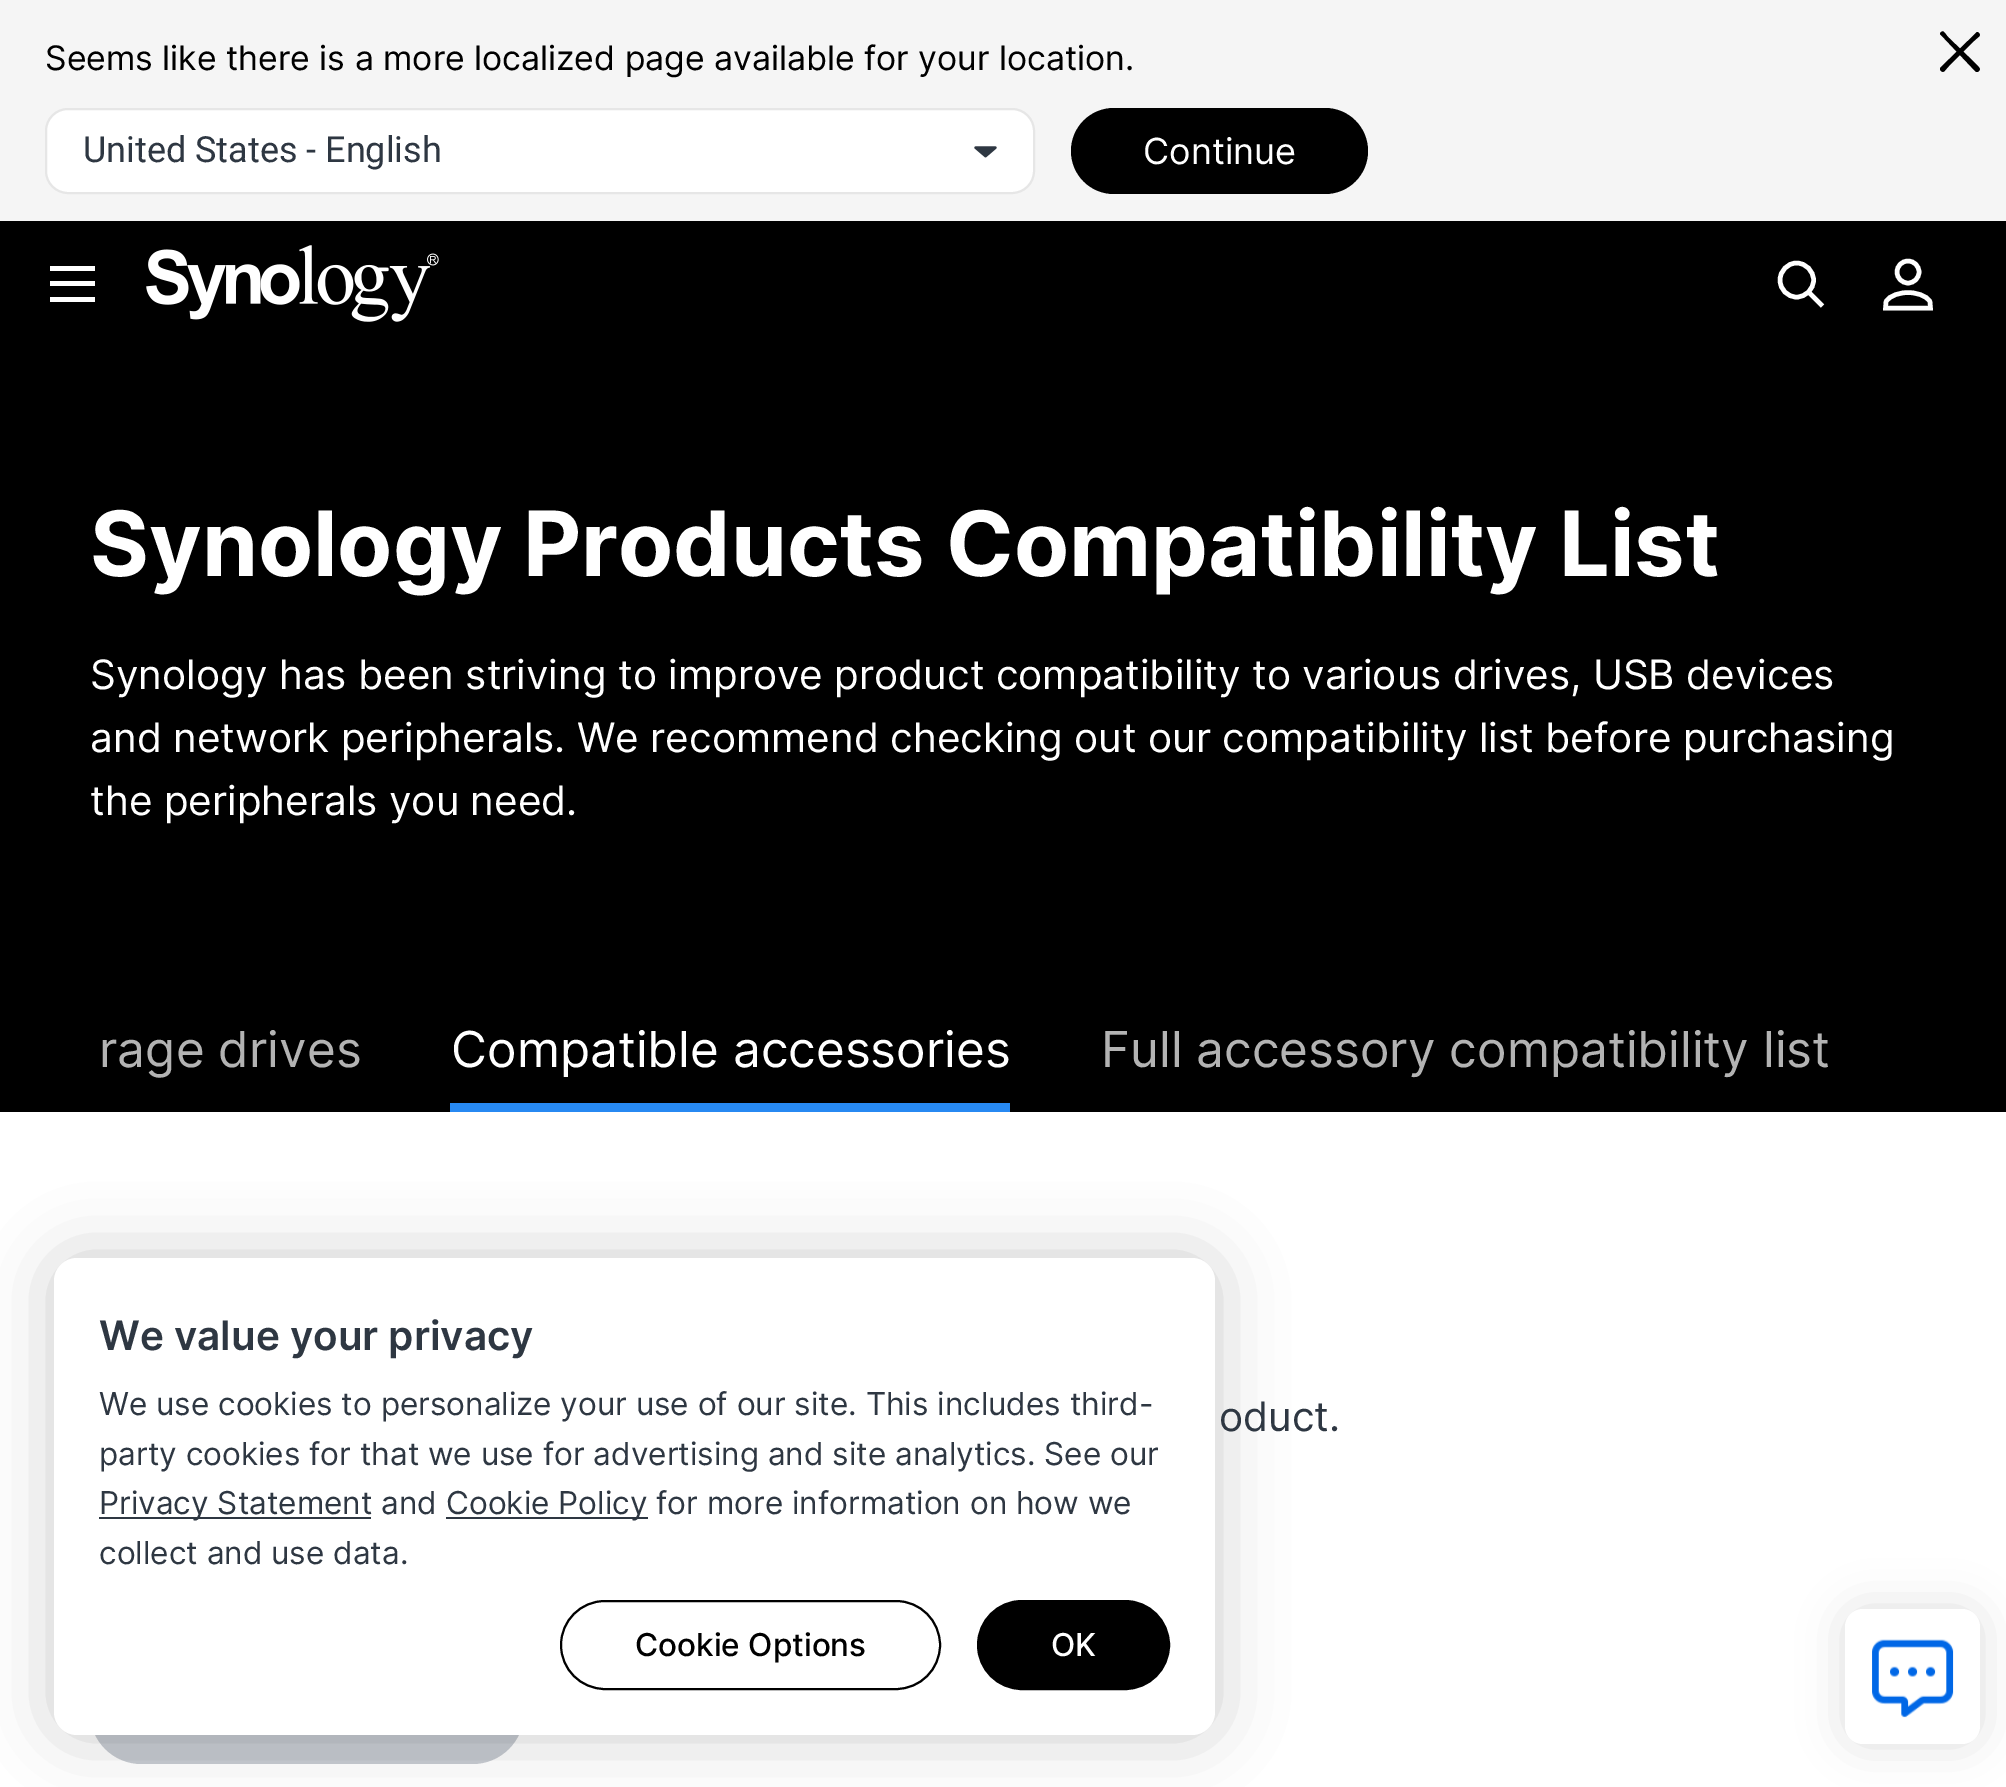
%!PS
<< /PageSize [2006 1787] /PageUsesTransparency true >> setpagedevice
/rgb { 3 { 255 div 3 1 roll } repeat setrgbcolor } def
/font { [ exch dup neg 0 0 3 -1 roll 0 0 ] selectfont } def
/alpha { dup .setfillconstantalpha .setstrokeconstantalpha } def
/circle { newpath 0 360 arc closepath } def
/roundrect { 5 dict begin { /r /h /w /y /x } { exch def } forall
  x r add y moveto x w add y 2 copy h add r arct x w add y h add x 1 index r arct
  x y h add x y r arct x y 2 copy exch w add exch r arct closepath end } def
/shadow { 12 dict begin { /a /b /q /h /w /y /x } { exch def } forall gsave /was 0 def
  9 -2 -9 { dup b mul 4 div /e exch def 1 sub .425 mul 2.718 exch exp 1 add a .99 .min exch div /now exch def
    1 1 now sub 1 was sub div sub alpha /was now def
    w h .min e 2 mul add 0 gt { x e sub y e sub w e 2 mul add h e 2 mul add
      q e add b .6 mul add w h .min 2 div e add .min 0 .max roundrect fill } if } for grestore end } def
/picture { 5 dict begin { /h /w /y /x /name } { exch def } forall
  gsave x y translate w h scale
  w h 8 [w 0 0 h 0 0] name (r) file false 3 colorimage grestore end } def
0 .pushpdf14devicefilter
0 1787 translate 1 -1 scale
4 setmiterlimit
255 255 255 rgb
0 0 2006 1787 rectfill
245 245 245 rgb
0 0 2006 221 rectfill
0 0 0 rgb
1978 32 moveto 1982 36 1979 36 1974 41 curveto 1949 66 lineto 1944 71 1944 74 1940 70 curveto 1940 68 lineto 1977 32 lineto closepath fill
1940 33 moveto 1944 29 1944 33 1949 38 curveto 1974 62 lineto 1979 68 1982 68 1978 72 curveto 1976 72 lineto 1940 34 lineto closepath fill
255 255 255 rgb
46 109 988 84 22 roundrect gsave fill grestore
230 230 230 rgb
2 setlinewidth
stroke
(img/1.rgb) 974 146 23 12 picture
0 0 0 rgb
1071 108 297 86 43 roundrect fill
[
  [0 221 2006 891 0 0 0]
  [50 266 45 5 255 255 255]
  [50 281 45 5 255 255 255]
  [50 297 45 5 255 255 255]
] { aload pop rgb rectfill } forall
(img/2.rgb) 146 245 293 77 picture
4.5 setlinewidth
1796.5 297 moveto 1806 297 1813.5 289.5 1813.5 280 curveto 1813.5 271 1806 263 1796.5 263 curveto 1787.5 263 1780 271 1780 280 curveto 1780 289.5 1787.5 297 1796.5 297 curveto closepath 1809 292.5 moveto 1822.5 306 lineto stroke
1908 292.5 moveto 1914.5 292.5 1927 295 1930 302 curveto 1930.5 308 lineto 1885.5 308 lineto 1886 302 lineto 1889 295 1901.5 292.5 1908 292.5 curveto closepath stroke
1908 272 11 circle stroke
39 137 242 rgb
450 1103 560 9 rectfill
199 203 209 rgb
90 1661 434 103 51.5 roundrect fill
84 84 84 rgb
1845 1609 135 135 18 22.5 0.2 shadow
255 255 255 rgb
1845 1609 135 135 18 roundrect fill
(img/3.rgb) 1872 1639 82 79 picture
0 0 0 rgb
54 1258 1161 477 23 34 0.2 shadow
255 255 255 rgb
54 1258 1161 477 23 roundrect fill
46 55 66 rgb
99 1517 272 2 rectfill
446 1517 202 2 rectfill
0 0 0 rgb
2 setlinewidth
561 1601 379 88 44 roundrect stroke
978 1601 191 88 44 roundrect gsave fill grestore
stroke
/Inter-Regular 33.75 font
45 70 moveto (Seems like there is a more localized page available for your location.) show
/Roboto-Regular 36 font
46 55 66 rgb
83 162 moveto (United States - English) show
/Inter-Regular 36 font
255 255 255 rgb
1143 164 moveto (Continue) show
/Inter-Bold 90 font
90 576 moveto (Synology Products Compatibility List) show
/Inter-Regular 40.5 font
[
  [(Synology has been striving to improve product compatibility to various drives, USB devices) 90 689]
  [(and network peripherals. We recommend checking out our compatibility list before purchasing) 90 752]
  [(the peripherals you need.) 90 815]
] { aload pop moveto show } forall
/Inter-Regular 49.5 font
179 179 179 rgb
99 1067 moveto (rage drives) show
255 255 255 rgb
451 1067 moveto (Compatible accessories) show
179 179 179 rgb
1101 1067 moveto (Full accessory compatibility list) show
/Inter-Regular 40.5 font
46 55 66 rgb
1219 1431 moveto (oduct.) show
/Inter-SemiBold 40.5 font
99 1350 moveto (We value your privacy) show
/Inter-Regular 31.5 font
[
  [(We use cookies to personalize your use of our site. This includes third-) 99 1415]
  [(party cookies for that we use for advertising and site analytics. See our) 99 1465]
  [(Privacy Statement and) 99 1514]
  [(Cookie Policy for more information on how we) 446 1514]
  [(collect and use data.) 99 1564]
] { aload pop moveto show } forall
/Inter-Medium 31.5 font
0 0 0 rgb
635 1656 moveto (Cookie Options) show
255 255 255 rgb
1051 1656 moveto (OK) show
.poppdf14devicefilter showpage
